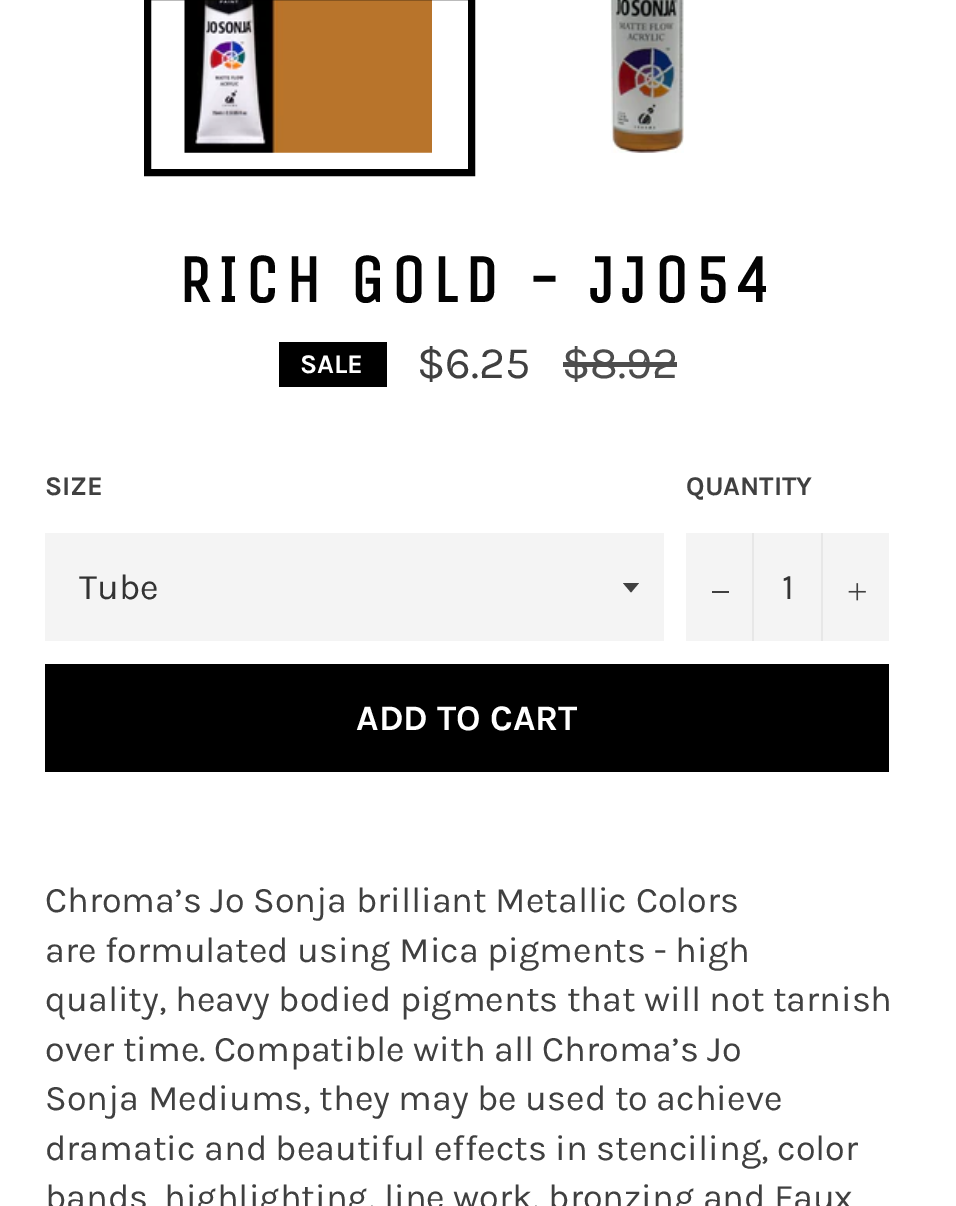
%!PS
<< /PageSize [956 1206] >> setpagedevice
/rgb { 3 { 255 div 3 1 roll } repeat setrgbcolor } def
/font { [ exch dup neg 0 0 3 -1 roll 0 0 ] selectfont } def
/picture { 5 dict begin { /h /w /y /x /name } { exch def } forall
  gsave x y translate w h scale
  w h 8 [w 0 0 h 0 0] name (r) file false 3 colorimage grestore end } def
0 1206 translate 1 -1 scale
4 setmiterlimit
255 255 255 rgb
0 0 956 1206 rectfill
(img/1.rgb) 184 0 248 153 picture
0 0 0 rgb
7 setlinewidth
147.5 -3.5 324 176 rectstroke
(img/2.rgb) 610 0 74 153 picture
[
  [279 342 108 45 0 0 0]
  [563 362 114 5 77 77 77]
  [45 533 619 108 244 244 244]
] { aload pop rgb rectfill } forall
64 64 64 rgb
623 583 moveto 631 592.5 lineto 639 583 lineto closepath fill
[
  [686 533 203 108 244 244 244]
  [752 533 2 108 231 231 231]
  [712 591 17 2 64 64 64]
  [821 533 2 108 231 231 231]
] { aload pop rgb rectfill } forall
(img/3.rgb) 848 583 18 18 picture
0 0 0 rgb
45 664 844 108 rectfill
/UnicaOne-Bold 67.5 font
3 3 3 rgb
178 302 moveto 6.75 0 (RICH GOLD - JJ054) ashow
/Karla-Bold 27 font
255 255 255 rgb
300 373 moveto (SALE) show
/Karla-Regular 45 font
64 64 64 rgb
417 378 moveto ($6.25) show
77 77 77 rgb
562 378 moveto ($8.92) show
/Karla-Bold 27 font
64 64 64 rgb
45 495 moveto (SIZE) show
/Karla-Regular 36 font
51 51 51 rgb
79 599 moveto (Tube) show
/Karla-Bold 27 font
64 64 64 rgb
686 495 moveto (QUANTITY) show
/Karla-Regular 36 font
51 51 51 rgb
782 599 moveto (1) show
/Karla-Bold 36 font
255 255 255 rgb
356 730 moveto (ADD TO CART) show
/Karla-Regular 36 font
64 64 64 rgb
[
  [(Chroma’s Jo Sonja brilliant Metallic Colors) 45 912]
  [(are formulated using Mica pigments - high) 45 962]
  [(quality, heavy bodied pigments that will not tarnish) 45 1011]
  [(over time. Compatible with all Chroma’s Jo) 45 1061]
  [(Sonja Mediums, they may be used to achieve) 45 1110]
  [(dramatic and beautiful effects in stenciling, color) 45 1160]
  [(bands) 45 1209]
  [(highlighting, line work, bronzing and Faux) 164 1209]
] { aload pop moveto show } forall
showpage
